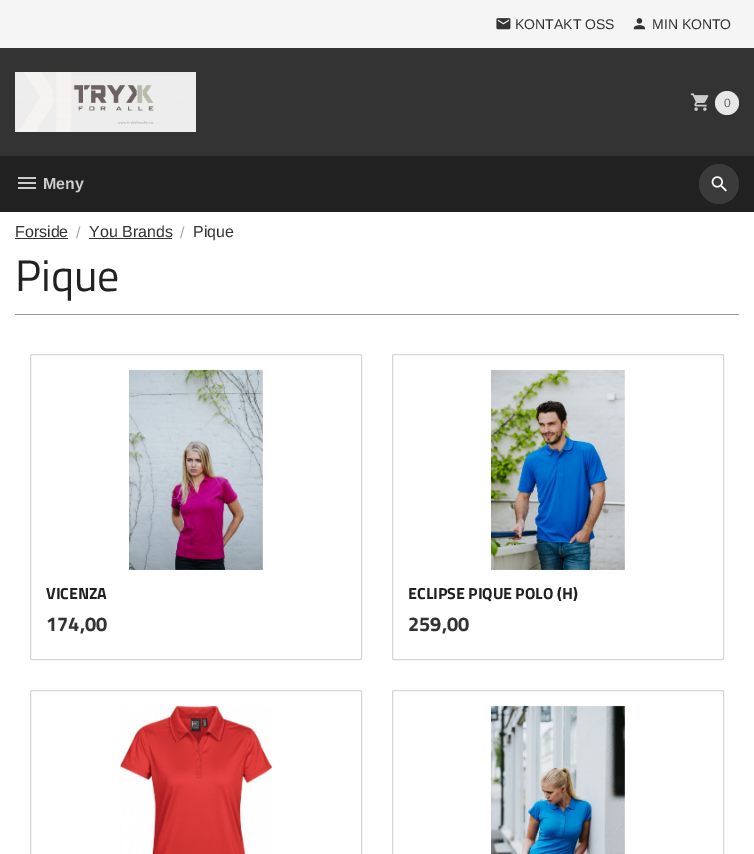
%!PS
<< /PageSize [754 854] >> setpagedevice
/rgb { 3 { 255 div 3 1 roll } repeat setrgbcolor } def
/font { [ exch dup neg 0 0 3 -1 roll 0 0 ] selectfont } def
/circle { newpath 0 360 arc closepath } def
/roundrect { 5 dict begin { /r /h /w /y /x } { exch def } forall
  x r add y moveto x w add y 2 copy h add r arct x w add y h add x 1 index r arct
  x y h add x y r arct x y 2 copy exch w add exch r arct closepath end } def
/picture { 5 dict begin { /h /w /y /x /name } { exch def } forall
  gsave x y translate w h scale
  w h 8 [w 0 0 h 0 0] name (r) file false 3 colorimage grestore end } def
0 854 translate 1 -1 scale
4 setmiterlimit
255 255 255 rgb
0 0 754 854 rectfill
245 245 245 rgb
0 0 754 48 rectfill
(img/1.rgb) 496 18 15 12 picture
(img/2.rgb) 633 18 12 12 picture
51 51 51 rgb
0 48 754 108 rectfill
(img/3.rgb) 15 72 181 60 picture
(img/4.rgb) 690 93 19 18 picture
231 231 231 rgb
727 103 12 circle fill
33 33 33 rgb
0 156 754 56 rectfill
(img/5.rgb) 18 177 18 12 picture
59 59 59 rgb
719 184 20 circle fill
(img/6.rgb) 711 176 16 16 picture
[
  [15 314 724 1 153 153 153]
  [15 238 53 1 51 51 51]
  [89 238 83 1 51 51 51]
] { aload pop rgb rectfill } forall
214 214 214 rgb
30.5 354.5 331 305 1.5 roundrect stroke
(img/7.rgb) 129 369 134 201 picture
392.5 354.5 331 305 1.5 roundrect stroke
(img/8.rgb) 491 369 134 201 picture
30.5 690.5 331 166 1.5 roundrect stroke
(img/9.rgb) 120 705 152 149 picture
392.5 690.5 331 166 1.5 roundrect stroke
(img/10.rgb) 491 705 134 149 picture
/LiberationSans-Regular 14 font
51 51 51 rgb
515 29 moveto (KONTAKT OSS) show
652 29 moveto (MIN KONTO) show
/LiberationSans-Regular 12 font
102 102 102 rgb
724 107 moveto (0) show
/LiberationSans-Bold 16 font
204 204 204 rgb
43 189 moveto (Meny) show
/LiberationSans-Regular 16 font
51 51 51 rgb
15 237 moveto (Forside) show
170 170 170 rgb
76 238 moveto (/) show
51 51 51 rgb
89 237 moveto (You Brands) show
170 170 170 rgb
180 238 moveto (/) show
51 51 51 rgb
193 237 moveto (Pique) show
/TitilliumWeb-Regular 44 font
33 33 33 rgb
15 291 moveto (Pique) show
/TitilliumWeb-Bold 16 font
46 599 moveto (VICENZA) show
/TitilliumWeb-Bold 20 font
51 51 51 rgb
46 631 moveto (174,00) show
/TitilliumWeb-Bold 16 font
33 33 33 rgb
408 599 moveto (ECLIPSE PIQUE POLO \(H\)) show
/TitilliumWeb-Bold 20 font
51 51 51 rgb
408 631 moveto (259,00) show
showpage
